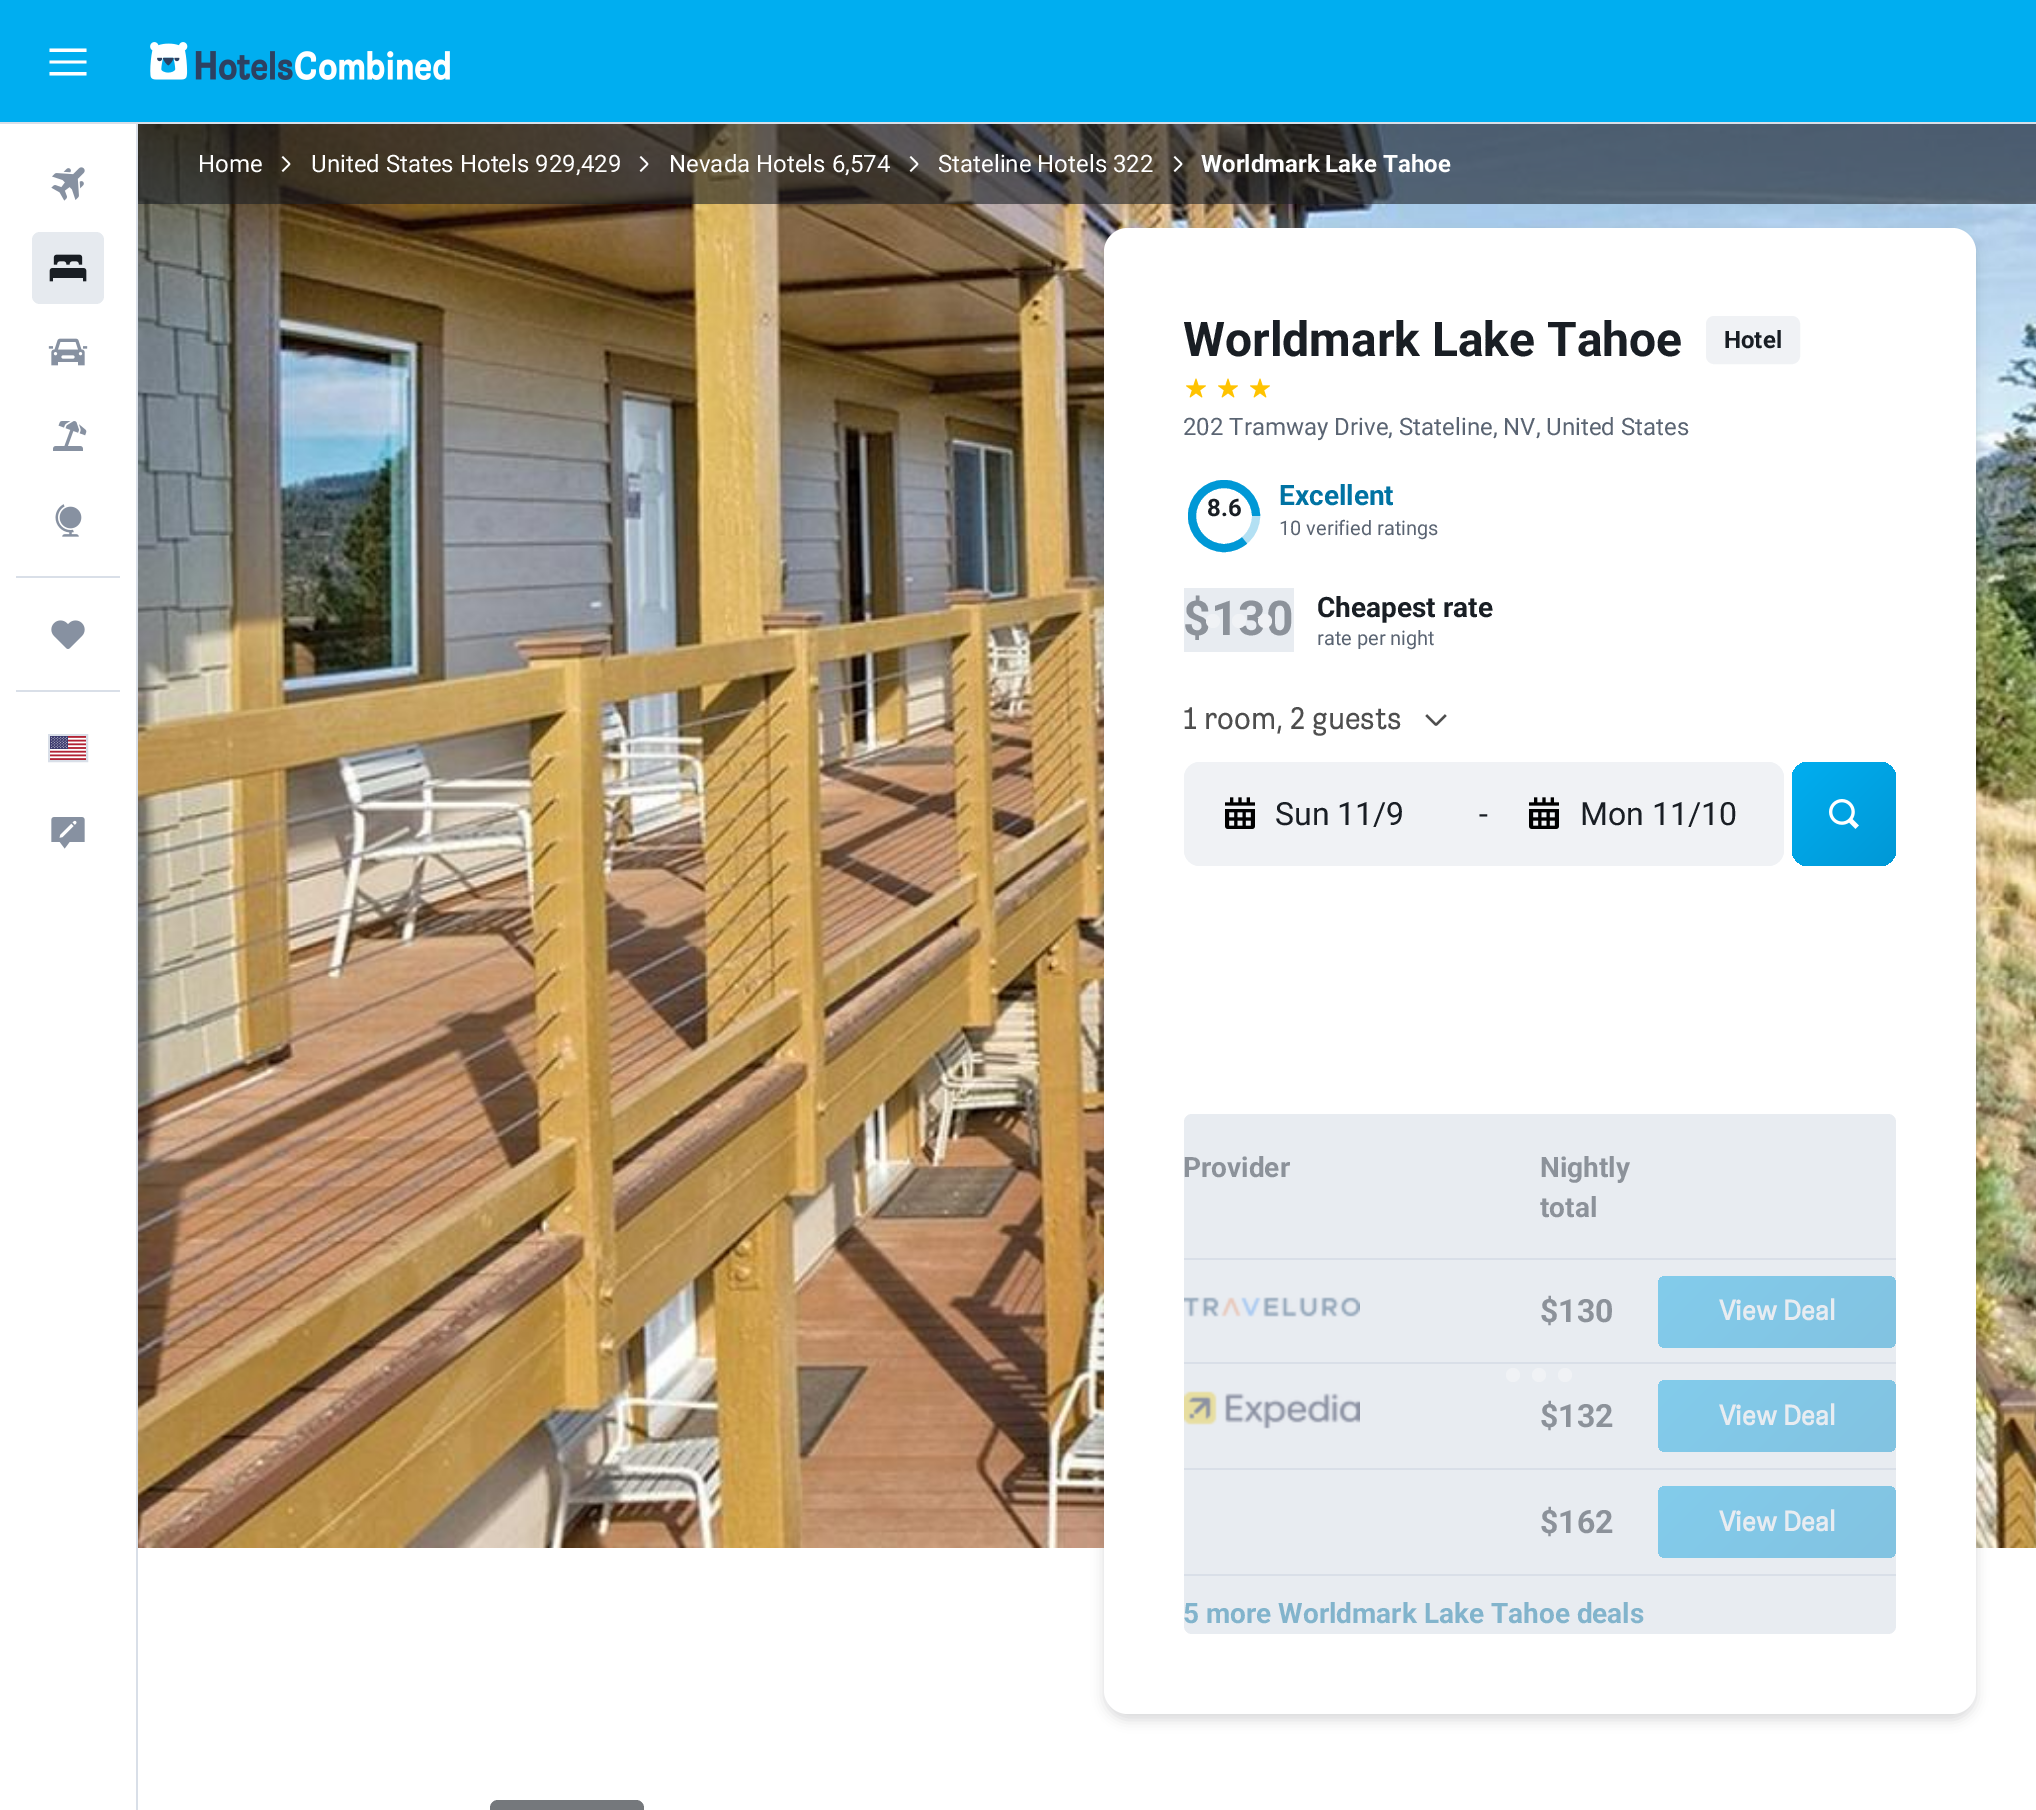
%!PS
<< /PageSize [2036 1810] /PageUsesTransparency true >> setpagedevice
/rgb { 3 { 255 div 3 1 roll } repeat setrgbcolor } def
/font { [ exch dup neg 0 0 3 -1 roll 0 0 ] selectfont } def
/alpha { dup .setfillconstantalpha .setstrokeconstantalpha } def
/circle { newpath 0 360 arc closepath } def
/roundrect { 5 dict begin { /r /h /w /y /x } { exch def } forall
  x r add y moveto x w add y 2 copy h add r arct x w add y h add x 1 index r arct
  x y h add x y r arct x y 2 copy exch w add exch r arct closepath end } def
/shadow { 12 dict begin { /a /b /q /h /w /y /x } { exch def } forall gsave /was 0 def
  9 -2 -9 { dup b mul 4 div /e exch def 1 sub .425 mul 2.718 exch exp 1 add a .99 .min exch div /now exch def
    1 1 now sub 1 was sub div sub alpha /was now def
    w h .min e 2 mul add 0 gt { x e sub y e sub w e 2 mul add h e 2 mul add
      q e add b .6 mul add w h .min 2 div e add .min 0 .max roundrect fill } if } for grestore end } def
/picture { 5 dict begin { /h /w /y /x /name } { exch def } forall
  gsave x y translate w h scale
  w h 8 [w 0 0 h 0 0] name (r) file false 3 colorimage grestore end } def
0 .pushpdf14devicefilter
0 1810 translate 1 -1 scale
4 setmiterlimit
255 255 255 rgb
0 0 2036 1810 rectfill
217 223 232 rgb
0 122 2036 2 rectfill
0 174 240 rgb
0 0 2036 122 rectfill
255 255 255 rgb
86.5 52 moveto 49.5 52 lineto 49.5 48.5 lineto 86.5 48.5 lineto closepath 86.5 72 moveto 49.5 72 lineto 49.5 75.5 lineto 86.5 75.5 lineto closepath 86.5 60.5 moveto 49.5 60.5 lineto 49.5 63.5 lineto 86.5 63.5 lineto closepath fill
(img/1.rgb) 150 42 300 38 picture
217 223 232 rgb
136 124 2 1686 rectfill
(img/2.rgb) 51 167 34 34 picture
230 234 239 rgb
32 232 72 72 8 roundrect fill
(img/3.rgb) 49 254 38 28 picture
(img/4.rgb) 48 338 40 28 picture
(img/5.rgb) 53 421 34 30 picture
(img/6.rgb) 55 504 27 33 picture
217 223 232 rgb
16 576 104 2 rectfill
(img/7.rgb) 51 620 34 29 picture
16 690 104 2 rectfill
2 setlinewidth
49 735 38 26 rectstroke
(img/8.rgb) 50 736 36 24 picture
(img/9.rgb) 51 817 34 32 picture
(img/10.rgb) 138 124 1898 1424 picture
0.6 alpha
25 30 36 rgb
138 124 1898 80 rectfill
1 alpha
(img/11.rgb) 281 156 10 16 picture
(img/12.rgb) 639 156 10 16 picture
(img/13.rgb) 909 156 10 16 picture
(img/14.rgb) 1173 156 10 16 picture
1104 234 872 1486 24 6 0.16 shadow
255 255 255 rgb
1104 228 872 1486 24 roundrect fill
240 242 245 rgb
1707 317 92 46 7 roundrect gsave fill grestore
stroke
(img/15.rgb) 1186 378 20 20 picture
(img/15.rgb) 1218 378 20 20 picture
(img/15.rgb) 1250 378 20 20 picture
179 224 243 rgb
8 setlinewidth
1256 516 moveto 1256 498.5 1241.5 484 1224 484 curveto 1206.5 484 1192 498.5 1192 516 curveto 1192 533.5 1206.5 548 1224 548 curveto 1241.5 548 1256 533.5 1256 516 curveto stroke
0 152 214 rgb
1256 516 moveto 1256 498.5 1241.5 484 1224 484 curveto 1206.5 484 1192 498.5 1192 516 curveto 1192 533.5 1206.5 548 1224 548 curveto 1232 548 1239 545 1244.5 540.5 curveto stroke
(img/16.rgb) 1425 714 22 12 picture
240 242 245 rgb
1184 762 600 104 16 roundrect fill
1184 762 296 104 16 roundrect fill
(img/17.rgb) 1225 797 30 32 picture
1488 762 296 104 16 roundrect fill
(img/17.rgb) 1529 797 30 32 picture
gsave 1792 762 104 104 16 roundrect clip newpath
<< /ShadingType 2 /ColorSpace /DeviceRGB /Coords [1792 762 1896 866] /Extend [true true] /Function << /FunctionType 2 /Domain [0 1] /C0 [0 0.682 0.941] /C1 [0 0.596 0.839] /N 1 >> >> shfill grestore
(img/18.rgb) 1829 799 30 30 picture
217 223 232 rgb
1184 1258 712 2 rectfill
1184 1362 712 2 rectfill
(img/19.rgb) 1184 1297 176 20 picture
gsave 1658 1276 238 72 8 roundrect clip newpath
<< /ShadingType 2 /ColorSpace /DeviceRGB /Coords [1700 1235 1855 1390] /Extend [true true] /Function << /FunctionType 2 /Domain [0 1] /C0 [0 0.682 0.941] /C1 [0 0.596 0.839] /N 1 >> >> shfill grestore
1184 1468 712 2 rectfill
(img/20.rgb) 1184 1391 176 38 picture
gsave 1658 1380 238 72 8 roundrect clip newpath
<< /ShadingType 2 /ColorSpace /DeviceRGB /Coords [1700 1339 1855 1494] /Extend [true true] /Function << /FunctionType 2 /Domain [0 1] /C0 [0 0.682 0.941] /C1 [0 0.596 0.839] /N 1 >> >> shfill grestore
1184 1574 712 2 rectfill
gsave 1658 1486 238 72 8 roundrect clip newpath
<< /ShadingType 2 /ColorSpace /DeviceRGB /Coords [1700 1445 1855 1600] /Extend [true true] /Function << /FunctionType 2 /Domain [0 1] /C0 [0 0.682 0.941] /C1 [0 0.596 0.839] /N 1 >> >> shfill grestore
117 120 124 rgb
490 1800 154 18 8 roundrect fill
/Roboto-Regular 24 font
255 255 255 rgb
[
  [(Home) 198 172]
  [(United States Hotels 929,429) 311 172]
  [(Nevada Hotels 6,574) 669 172]
  [(Stateline Hotels 322) 938 172]
] { aload pop moveto show } forall
/Roboto-Bold 24 font
1201 172 moveto (Worldmark Lake Tahoe) show
/Roboto-Bold 48 font
25 30 36 rgb
1183 356 moveto (Worldmark Lake Tahoe) show
/Roboto-Bold 24 font
1724 348 moveto (Hotel) show
/Roboto-Regular 24 font
90 100 114 rgb
1183 435 moveto (202 Tramway Drive, Stateline, NV, United States) show
/Roboto-Bold 24 font
25 30 36 rgb
1207 516 moveto (8.6) show
/Roboto-Bold 28 font
0 115 163 rgb
1279 505 moveto (Excellent) show
/Roboto-Regular 20 font
90 100 114 rgb
1279 535 moveto (10 verified ratings) show
/Roboto-Bold 48 font
25 30 36 rgb
1183 635 moveto ($130) show
0.6 alpha
217 223 232 rgb
1184 588 110 64 rectfill
1 alpha
240 242 245 rgb
1265 621 7 circle fill
1239 621 7 circle fill
1213 621 7 circle fill
/Roboto-Bold 28 font
25 30 36 rgb
1317 617 moveto (Cheapest rate) show
/Roboto-Regular 20 font
90 100 114 rgb
1317 645 moveto (rate per night) show
/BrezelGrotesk-Regular 32 font
78 78 78 rgb
1183 729 moveto (1 room, 2 guests) show
/Roboto-Regular 32 font
25 30 36 rgb
[
  [(Sun 11/9) 1275 825]
  [(-) 1479 825]
  [(Mon 11/10) 1580 825]
] { aload pop moveto show } forall
/Roboto-Bold 28 font
[
  [(Provider) 1183 1177]
  [(Nightly) 1540 1177]
  [(total) 1540 1217]
] { aload pop moveto show } forall
/Roboto-Bold 32 font
1540 1322 moveto ($130) show
/BrezelGrotesk-Bold 28 font
255 255 255 rgb
1719 1320 moveto (View Deal) show
/Roboto-Bold 32 font
25 30 36 rgb
1540 1427 moveto ($132) show
/BrezelGrotesk-Bold 28 font
255 255 255 rgb
1719 1425 moveto (View Deal) show
/Roboto-Bold 32 font
25 30 36 rgb
1540 1533 moveto ($162) show
/BrezelGrotesk-Bold 28 font
255 255 255 rgb
1719 1531 moveto (View Deal) show
/Roboto-Bold 28 font
0 115 163 rgb
1183 1623 moveto (5 more Worldmark Lake Tahoe deals) show
0.6 alpha
217 223 232 rgb
1184 1114 712 520 8 roundrect fill
1 alpha
240 242 245 rgb
1565 1375 7 circle fill
1539 1375 7 circle fill
1513 1375 7 circle fill
.poppdf14devicefilter showpage
